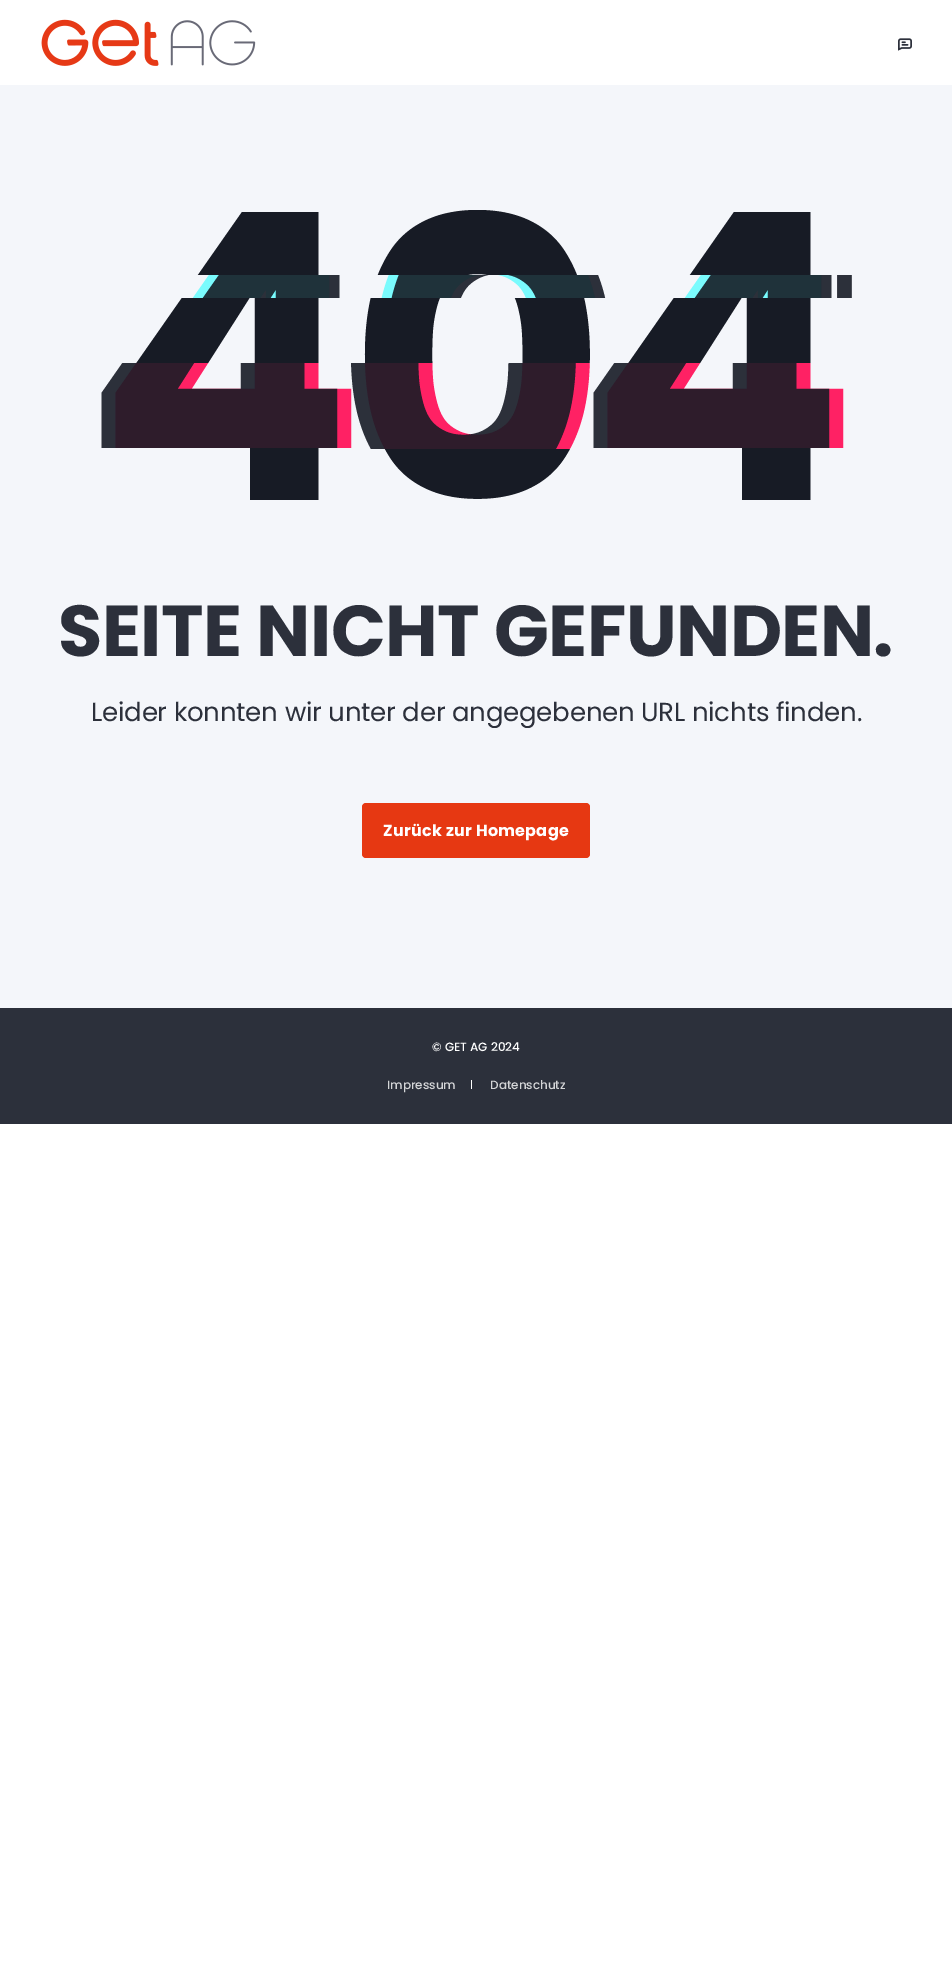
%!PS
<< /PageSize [952 1985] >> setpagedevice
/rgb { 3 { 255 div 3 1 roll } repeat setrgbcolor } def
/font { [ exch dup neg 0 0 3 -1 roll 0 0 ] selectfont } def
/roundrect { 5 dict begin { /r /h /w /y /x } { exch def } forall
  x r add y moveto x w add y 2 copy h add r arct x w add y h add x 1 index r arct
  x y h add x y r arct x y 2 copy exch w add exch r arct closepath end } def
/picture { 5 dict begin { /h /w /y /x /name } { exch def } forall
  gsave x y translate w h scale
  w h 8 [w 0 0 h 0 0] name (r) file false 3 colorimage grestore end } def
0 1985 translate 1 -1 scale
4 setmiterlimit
255 255 255 rgb
0 0 952 1985 rectfill
(img/1.rgb) 41 19 215 47 picture
(img/2.rgb) 898 38 14 13 picture
244 246 250 rgb
0 85 952 923 rectfill
(img/3.rgb) 101 210 751 290 picture
230 56 18 rgb
362 803 228 55 4 roundrect fill
44 48 59 rgb
0 1008 952 116 rectfill
255 255 255 rgb
471 1080 1 9 rectfill
/Poppins-Bold 72 font
44 48 59 rgb
58 656 moveto -0.5 0 (SEITE NICHT GEFUNDEN.) ashow
/Poppins-Regular 26 font
91 721 moveto -0.2 0 (Leider konnten wir unter der angegebenen URL nichts finden.) ashow
/Poppins-Bold 16 font
255 255 255 rgb
383 836 moveto 0.25 0 (Zurück zur Homepage) ashow
/Poppins-Medium 12 font
432 1051 moveto (© GET AG 2024) show
213 214 216 rgb
387 1089 moveto (Impressum) show
490 1089 moveto (Datenschutz) show
showpage
